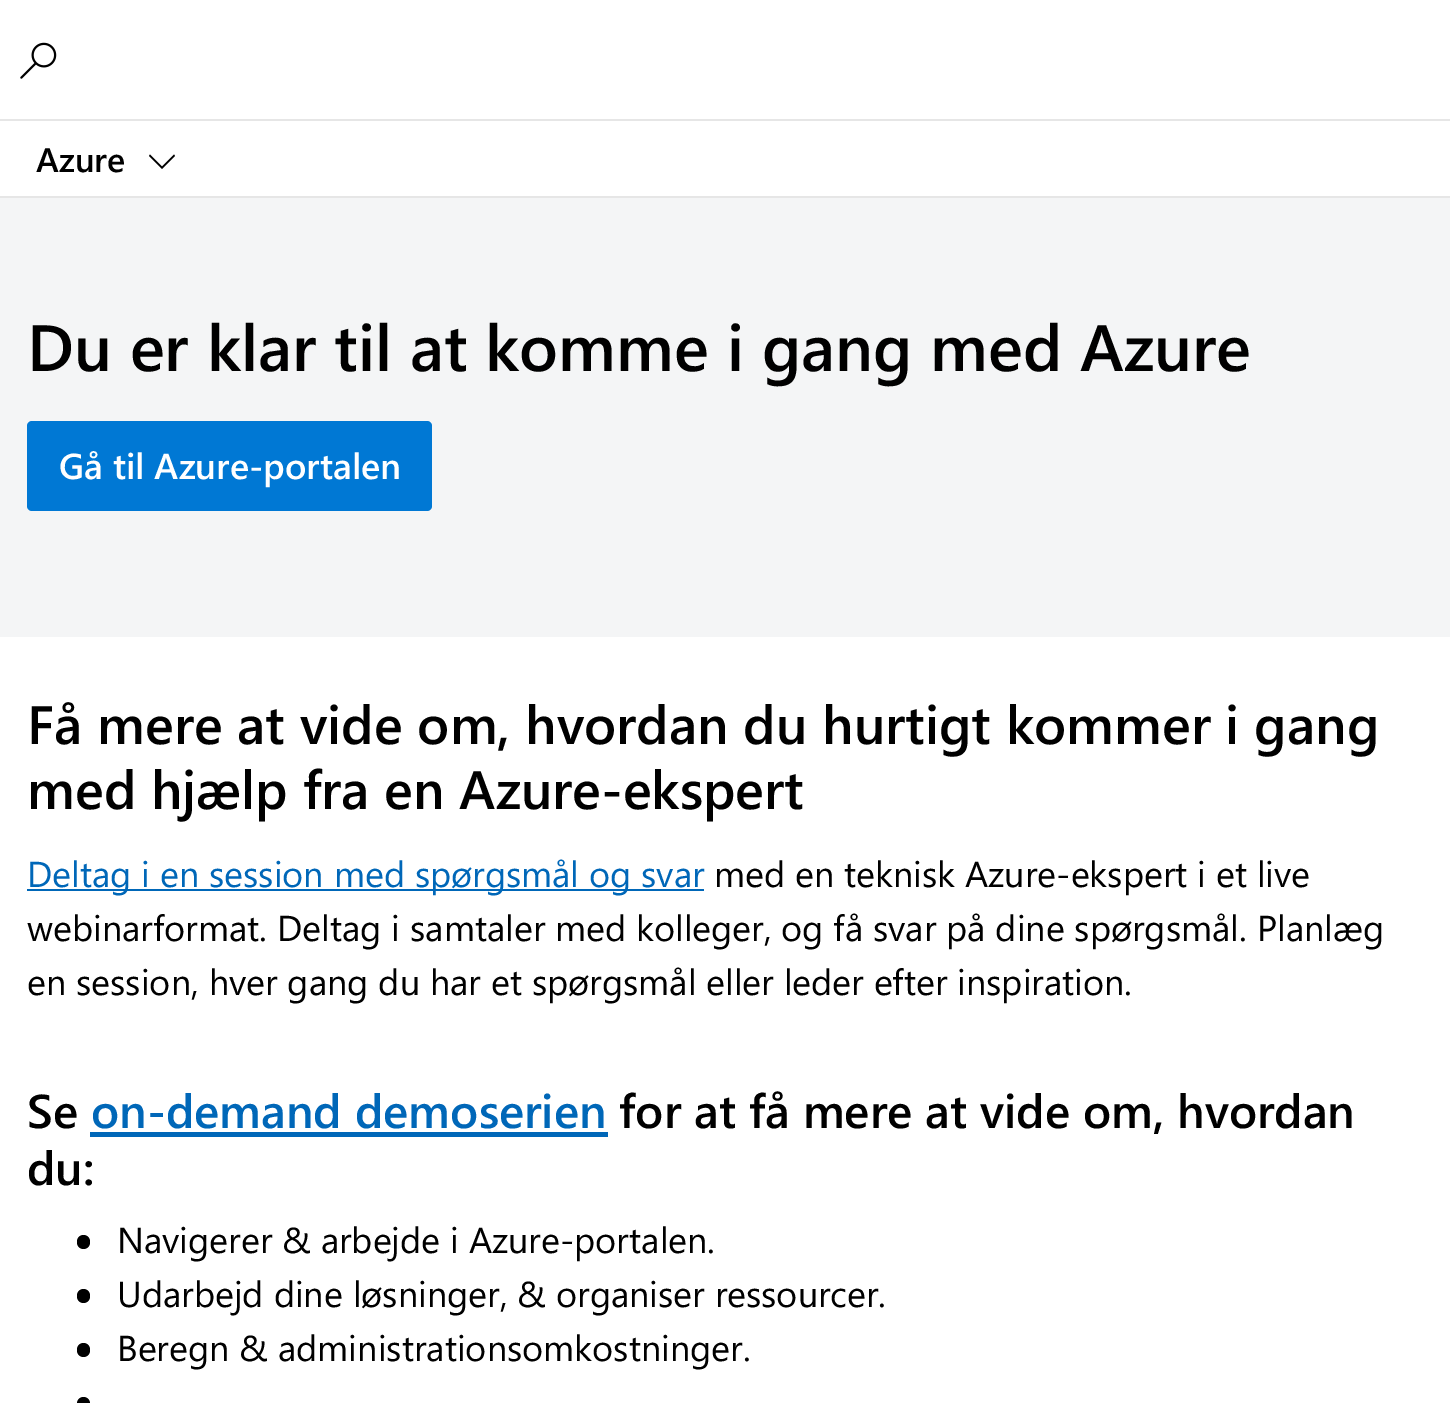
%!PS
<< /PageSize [1450 1403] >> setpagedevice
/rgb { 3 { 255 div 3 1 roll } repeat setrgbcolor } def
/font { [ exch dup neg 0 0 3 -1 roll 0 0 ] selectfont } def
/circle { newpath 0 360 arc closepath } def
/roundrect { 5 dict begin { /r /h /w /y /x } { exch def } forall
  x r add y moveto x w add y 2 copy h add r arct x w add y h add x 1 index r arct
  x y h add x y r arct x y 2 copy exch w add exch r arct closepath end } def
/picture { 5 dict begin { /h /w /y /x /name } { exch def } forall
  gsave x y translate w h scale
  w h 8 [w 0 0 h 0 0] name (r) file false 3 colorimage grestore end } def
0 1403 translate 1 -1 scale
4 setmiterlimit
255 255 255 rgb
0 0 1450 1403 rectfill
230 230 230 rgb
0 119 1450 2 rectfill
(img/1.rgb) 20 42 37 37 picture
0 196 1450 2 rectfill
0 0 0 rgb
174 154.5 moveto 175 156 lineto 162 169 lineto 149 156 lineto 150 154.5 lineto 162 166.5 lineto closepath fill
244 245 246 rgb
0 198 1450 439 rectfill
0 120 212 rgb
27 421 405 90 5 roundrect fill
0 103 184 rgb
27 889 677 2 rectfill
90 1132 518 5 rectfill
0 0 0 rgb
77 1235 13 14 6.5 roundrect fill
77 1289 13 14 6.5 roundrect fill
77 1343 13 14 6.5 roundrect fill
83.5 1403.5 6.5 circle fill
/SegoeUI-SemiBold 34 font
36 172 moveto (Azure) show
/SegoeUI-SemiBold 65.25 font
27 371 moveto (Du er klar til at komme i gang med Azure) show
/SegoeUI-SemiBold 36 font
255 255 255 rgb
59 479 moveto (Gå til Azure-portalen) show
/SegoeUI-SemiBold 54 font
0 0 0 rgb
27 744 moveto (Få mere at vide om, hvordan du hurtigt kommer i gang) show
27 809 moveto (med hjælp fra en Azure-ekspert) show
/SegoeUI-Regular 36 font
0 103 184 rgb
27 887 moveto (Deltag i en session med spørgsmål og svar) show
0 0 0 rgb
[
  [(med en teknisk Azure-ekspert i et live) 714 887]
  [(webinarformat. Deltag i samtaler med kolleger, og få svar på dine spørgsmål. Planlæg) 27 941]
  [(en session, hver gang du har et spørgsmål eller leder efter inspiration.) 27 995]
] { aload pop moveto show } forall
/SegoeUI-SemiBold 47.25 font
27 1128 moveto (Se) show
0 103 184 rgb
91 1128 moveto (on-demand demoserien) show
0 0 0 rgb
619 1128 moveto (for at få mere at vide om, hvordan) show
27 1185 moveto (du:) show
/SegoeUI-Regular 36 font
[
  [(Navigerer & arbejde i Azure-portalen.) 117 1253]
  [(Udarbejd dine løsninger, & organiser ressourcer.) 117 1307]
  [(Beregn & administrationsomkostninger.) 117 1361]
] { aload pop moveto show } forall
showpage
